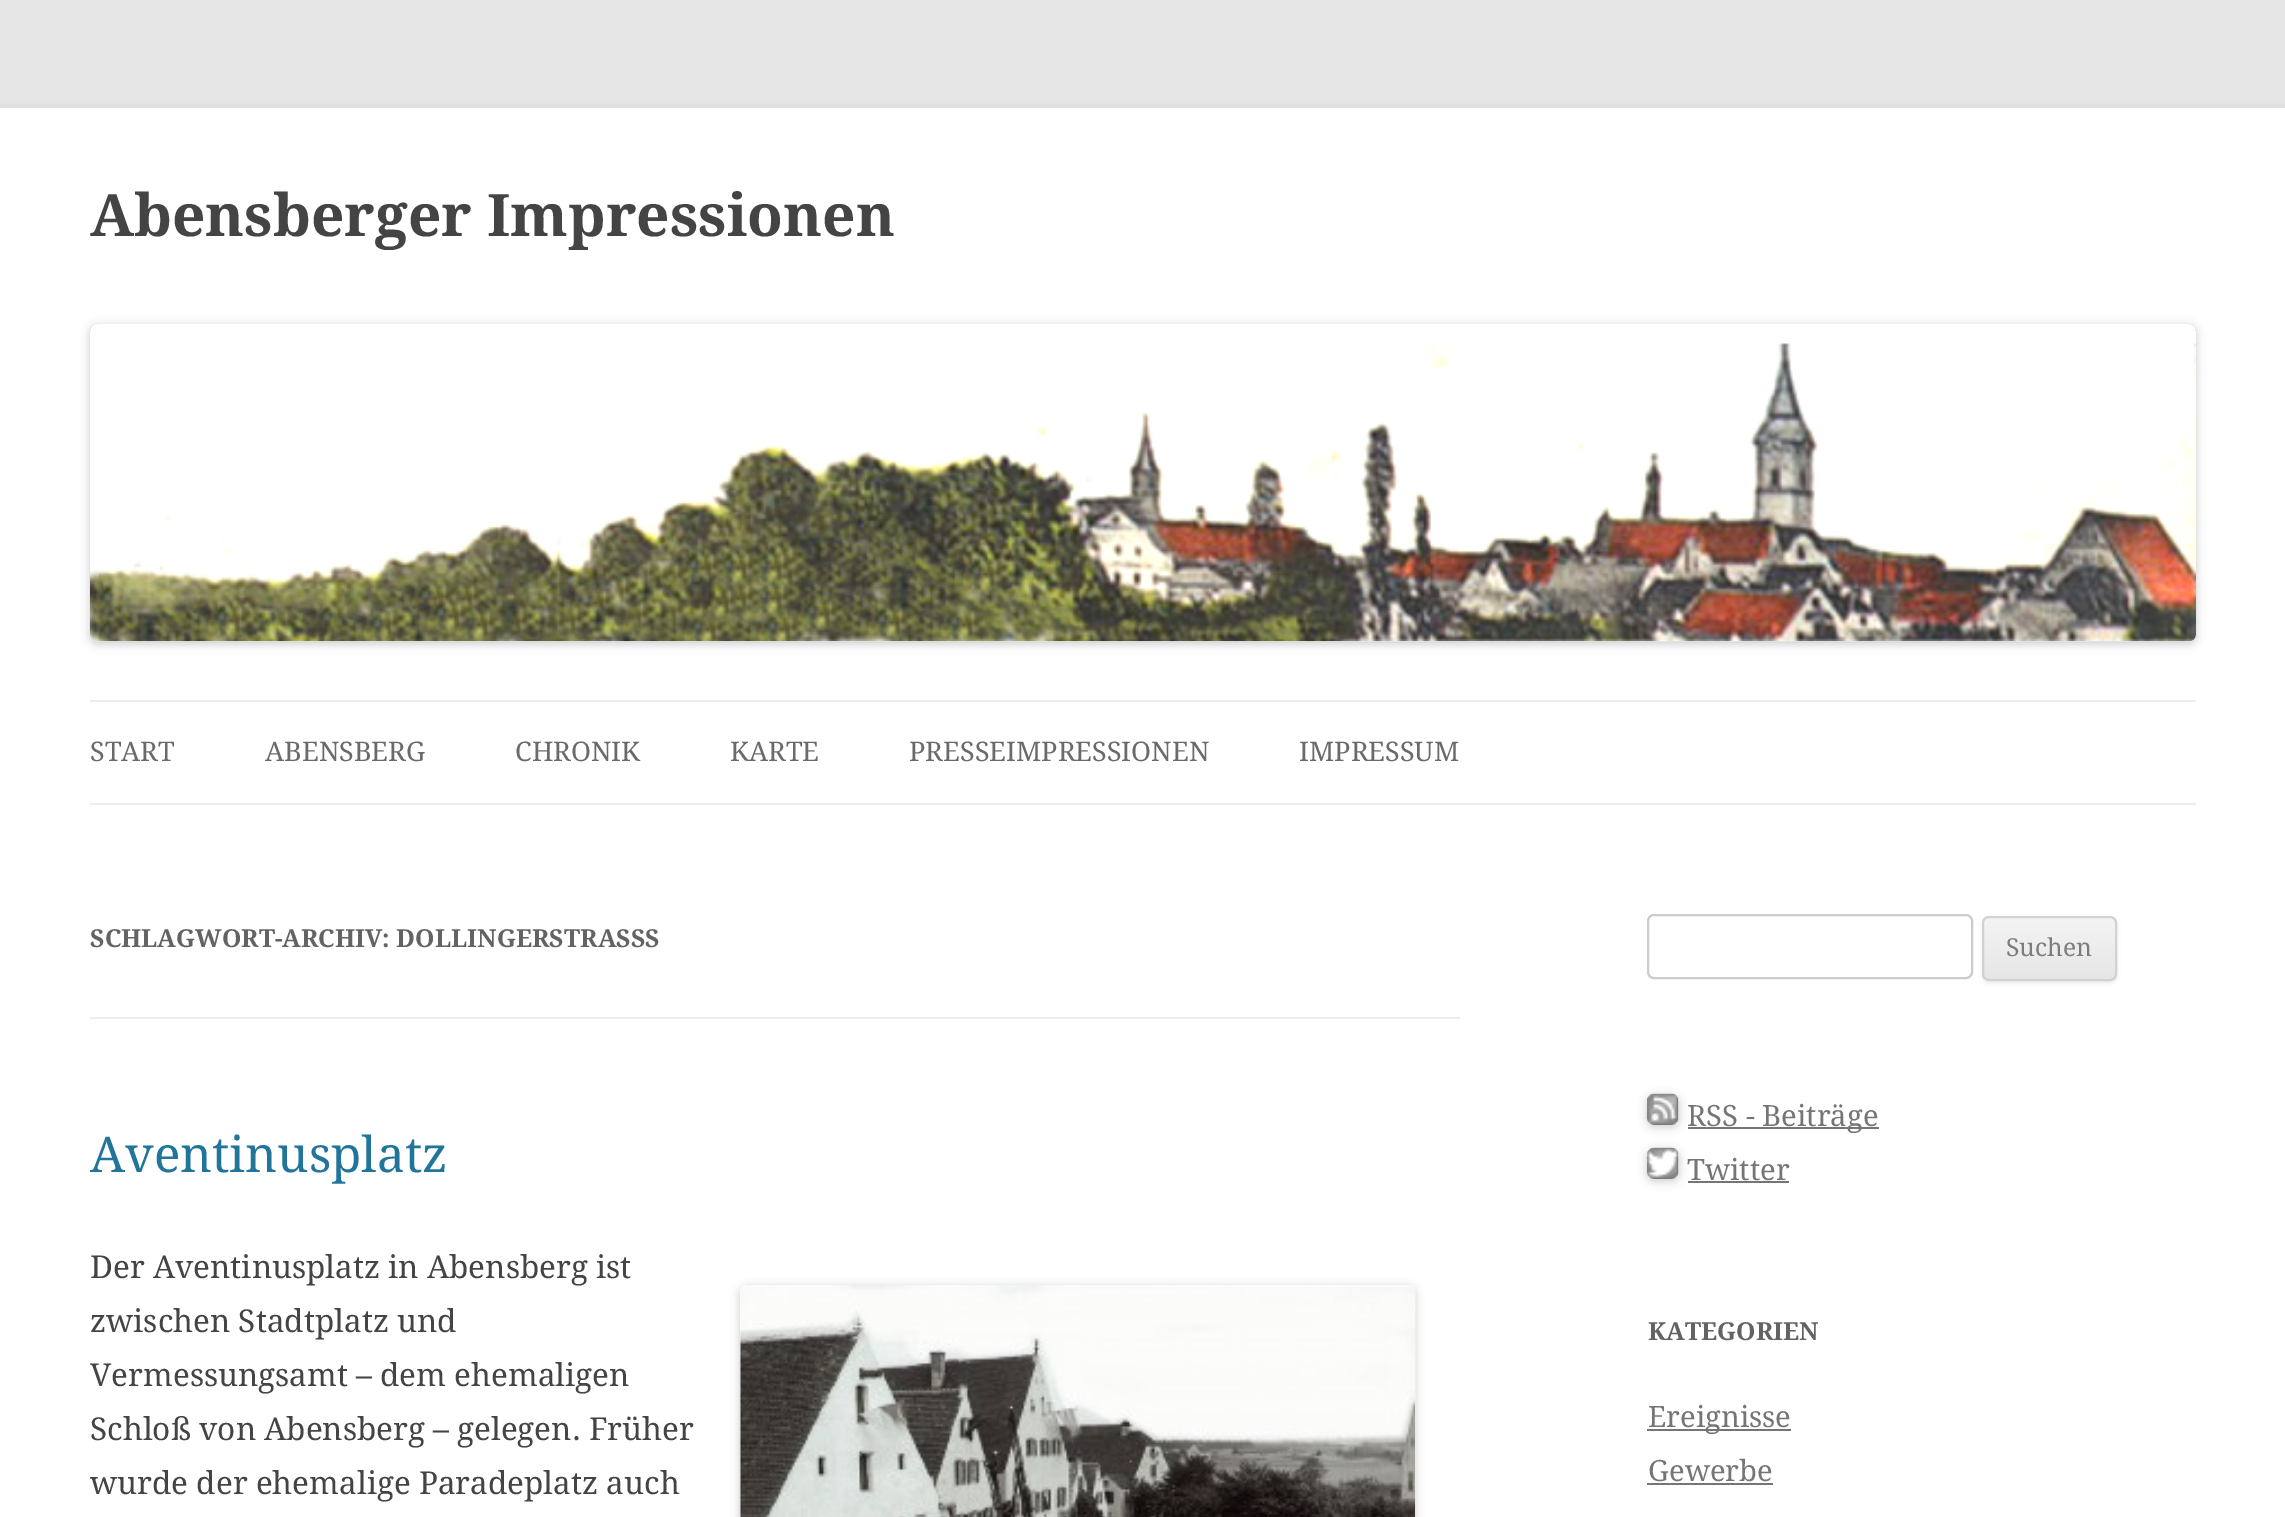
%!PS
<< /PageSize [2285 1517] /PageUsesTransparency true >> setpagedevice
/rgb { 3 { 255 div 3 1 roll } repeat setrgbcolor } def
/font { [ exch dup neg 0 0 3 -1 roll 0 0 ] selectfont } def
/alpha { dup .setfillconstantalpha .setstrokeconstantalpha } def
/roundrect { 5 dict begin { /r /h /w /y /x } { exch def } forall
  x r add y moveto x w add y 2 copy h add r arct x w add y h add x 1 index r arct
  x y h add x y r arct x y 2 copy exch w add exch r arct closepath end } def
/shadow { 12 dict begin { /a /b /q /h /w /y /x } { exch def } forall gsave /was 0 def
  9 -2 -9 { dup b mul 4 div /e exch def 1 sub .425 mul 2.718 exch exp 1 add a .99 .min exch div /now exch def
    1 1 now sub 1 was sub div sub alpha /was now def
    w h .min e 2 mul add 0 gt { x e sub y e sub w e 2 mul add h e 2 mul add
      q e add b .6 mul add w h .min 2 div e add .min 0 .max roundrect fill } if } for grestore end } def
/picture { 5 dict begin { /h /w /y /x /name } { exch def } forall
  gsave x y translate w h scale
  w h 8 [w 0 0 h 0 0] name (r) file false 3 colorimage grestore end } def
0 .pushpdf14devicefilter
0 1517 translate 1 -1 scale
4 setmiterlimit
230 230 230 rgb
0 0 2285 1517 rectfill
100 100 100 rgb
0 113 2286 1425 0 7 0.3 shadow
255 255 255 rgb
0 108 2285 1409 rectfill
gsave
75 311 moveto 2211 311 lineto 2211 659 lineto 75 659 lineto closepath 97 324 moveto 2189 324 lineto 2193 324 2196 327 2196 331 curveto 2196 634 lineto 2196 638 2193 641 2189 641 curveto 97 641 lineto 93 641 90 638 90 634 curveto 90 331 lineto 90 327 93 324 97 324 curveto closepath eoclip newpath
0 0 0 rgb
90 326 2106 318 7 4.5 0.2 shadow
grestore
(img/1.rgb) 90 343 2106 299 picture
[
  [90 700 2106 2 237 237 237]
  [90 803 2106 2 237 237 237]
  [90 1017 1370 2 237 237 237]
] { aload pop rgb rectfill } forall
0 0 0 rgb
740 1287 675 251 7 4.5 0.2 shadow
(img/2.rgb) 740 1285 676 232 picture
204 204 204 rgb
2 setlinewidth
1648 915 324 63 6 roundrect stroke
64 64 64 rgb
1982 918 135 65 7 2 0.1 shadow
gsave
1982 916 135 65 7 roundrect clip newpath
gsave 1982 918 moveto 2117 918 lineto 2117 979 lineto 1982 979 lineto closepath clip newpath
<< /ShadingType 2 /ColorSpace /DeviceRGB /Coords [2050 918 2050 979] /Extend [true true] /Function << /FunctionType 2 /Domain [0 1] /C0 [0.957 0.957 0.957] /C1 [0.902 0.902 0.902] /N 1 >> >> shfill grestore
grestore
210 210 210 rgb
1983 917 133 63 6 roundrect stroke
gsave
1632 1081 moveto 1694 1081 lineto 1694 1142 lineto 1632 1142 lineto closepath 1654 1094 moveto 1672 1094 lineto 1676 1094 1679 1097 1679 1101 curveto 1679 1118 lineto 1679 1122 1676 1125 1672 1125 curveto 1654 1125 lineto 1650 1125 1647 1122 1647 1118 curveto 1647 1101 lineto 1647 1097 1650 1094 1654 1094 curveto closepath eoclip newpath
0 0 0 rgb
1647 1096 32 31 7 4.5 0.2 shadow
grestore
(img/3.rgb) 1647 1093 32 32 picture
117 117 117 rgb
1688 1127 191 2 rectfill
gsave
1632 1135 moveto 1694 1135 lineto 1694 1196 lineto 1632 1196 lineto closepath 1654 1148 moveto 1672 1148 lineto 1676 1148 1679 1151 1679 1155 curveto 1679 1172 lineto 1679 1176 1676 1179 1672 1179 curveto 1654 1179 lineto 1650 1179 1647 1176 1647 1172 curveto 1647 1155 lineto 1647 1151 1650 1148 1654 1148 curveto closepath eoclip newpath
0 0 0 rgb
1647 1150 32 31 7 4.5 0.2 shadow
grestore
(img/4.rgb) 1647 1147 32 32 picture
[
  [1688 1181 101 2 117 117 117]
  [1647 1429 144 2 117 117 117]
  [1647 1483 126 2 117 117 117]
] { aload pop rgb rectfill } forall
/DroidSerif-Bold 58.5 font
68 68 68 rgb
90 236 moveto (Abensberger Impressionen) show
/DroidSerif-Regular 27 font
106 106 106 rgb
[
  [(START) 90 761]
  [(ABENSBERG) 265 761]
  [(CHRONIK) 515 761]
  [(KARTE) 730 761]
  [(PRESSEIMPRESSIONEN) 909 761]
  [(IMPRESSUM) 1299 761]
] { aload pop moveto show } forall
/DroidSerif-Bold 24.75 font
99 99 99 rgb
90 947 moveto (SCHLAGWORT-ARCHIV: DOLLINGERSTRASSS) show
/DroidSerif-Regular 49.5 font
33 117 155 rgb
90 1172 moveto (Aventinusplatz) show
/DroidSerif-Regular 31.5 font
68 68 68 rgb
[
  [(Der Aventinusplatz in Abensberg ist) 90 1278]
  [(zwischen Stadtplatz und) 90 1332]
  [(Vermessungsamt – dem ehemaligen) 90 1386]
  [(Schloß von Abensberg – gelegen. Früher) 90 1440]
  [(wurde der ehemalige Paradeplatz auch) 90 1494]
] { aload pop moveto show } forall
/DroidSerif-Regular 24.75 font
124 124 124 rgb
2006 956 moveto (Suchen) show
/DroidSerif-Regular 29.25 font
117 117 117 rgb
1687 1126 moveto (RSS - Beiträge) show
1687 1180 moveto (Twitter) show
/DroidSerif-Bold 24.75 font
99 99 99 rgb
1648 1340 moveto (KATEGORIEN) show
/DroidSerif-Regular 29.25 font
117 117 117 rgb
1648 1427 moveto (Ereignisse) show
1648 1481 moveto (Gewerbe) show
.poppdf14devicefilter showpage
